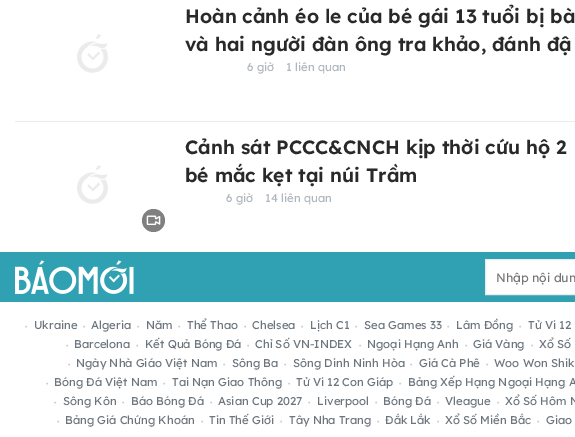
%!PS
<< /PageSize [575 437] >> setpagedevice
/rgb { 3 { 255 div 3 1 roll } repeat setrgbcolor } def
/font { [ exch dup neg 0 0 3 -1 roll 0 0 ] selectfont } def
/circle { newpath 0 360 arc closepath } def
/picture { 5 dict begin { /h /w /y /x /name } { exch def } forall
  gsave x y translate w h scale
  w h 8 [w 0 0 h 0 0] name (r) file false 3 colorimage grestore end } def
0 437 translate 1 -1 scale
4 setmiterlimit
255 255 255 rgb
0 0 575 437 rectfill
(img/1.rgb) 77 34 31 39 picture
233 236 239 rgb
15 121 560 1 rectfill
(img/1.rgb) 77 165 31 39 picture
128 128 128 rgb
153.5 220.5 11.5 circle fill
(img/2.rgb) 146 215 15 11 picture
47 161 179 rgb
0 252 575 50 rectfill
(img/3.rgb) 15 260 119 34 picture
255 255 255 rgb
485.5 259.5 moveto 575.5 259.5 lineto 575.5 294.5 lineto 485.5 294.5 lineto closepath gsave fill grestore
233 236 239 rgb
stroke
/Lexend-SemiBold 19.25 font
41 41 41 rgb
185 23 moveto (Hoàn cảnh éo le của bé gái 13 tuổi bị bà) show
185 51 moveto (và hai người đàn ông tra khảo, đánh đậ) show
/Lexend-Regular 11.4 font
173 181 189 rgb
247 71 moveto (6 giờ) show
286 71 moveto (1 liên quan) show
/Lexend-SemiBold 19.25 font
41 41 41 rgb
185 154 moveto (Cảnh sát PCCC&CNCH kịp thời cứu hộ 2) show
185 182 moveto (bé mắc kẹt tại núi Trầm) show
/Lexend-Regular 11.4 font
173 181 189 rgb
226 202 moveto (6 giờ) show
265 202 moveto (14 liên quan) show
/Lexend-Regular 12.25 font
117 117 117 rgb
496 282 moveto (Nhập nội dun) show
/Lexend-Regular 7 font
204 204 204 rgb
25 329 moveto (•) show
/Lexend-Regular 11.4 font
108 117 125 rgb
34 329 moveto (Ukraine) show
/Lexend-Regular 7 font
204 204 204 rgb
83 329 moveto (•) show
/Lexend-Regular 11.4 font
108 117 125 rgb
91 329 moveto (Algeria) show
/Lexend-Regular 7 font
204 204 204 rgb
137 329 moveto (•) show
/Lexend-Regular 11.4 font
108 117 125 rgb
146 329 moveto (Năm) show
/Lexend-Regular 7 font
204 204 204 rgb
178 329 moveto (•) show
/Lexend-Regular 11.4 font
108 117 125 rgb
187 329 moveto (Thể Thao) show
/Lexend-Regular 7 font
204 204 204 rgb
244 329 moveto (•) show
/Lexend-Regular 11.4 font
108 117 125 rgb
252 329 moveto (Chelsea) show
/Lexend-Regular 7 font
204 204 204 rgb
301 329 moveto (•) show
/Lexend-Regular 11.4 font
108 117 125 rgb
310 329 moveto (Lịch C1) show
/Lexend-Regular 7 font
204 204 204 rgb
355 329 moveto (•) show
/Lexend-Regular 11.4 font
108 117 125 rgb
364 329 moveto (Sea Games 33) show
/Lexend-Regular 7 font
204 204 204 rgb
447 329 moveto (•) show
/Lexend-Regular 11.4 font
108 117 125 rgb
456 329 moveto (Lâm Đồng) show
/Lexend-Regular 7 font
204 204 204 rgb
519 329 moveto (•) show
/Lexend-Regular 11.4 font
108 117 125 rgb
528 329 moveto (Tử Vi 12) show
/Lexend-Regular 7 font
204 204 204 rgb
66 348 moveto (•) show
/Lexend-Regular 11.4 font
108 117 125 rgb
74 348 moveto (Barcelona) show
/Lexend-Regular 7 font
204 204 204 rgb
136 348 moveto (•) show
/Lexend-Regular 11.4 font
108 117 125 rgb
145 348 moveto (Kết Quả Bóng Đá) show
/Lexend-Regular 7 font
204 204 204 rgb
247 348 moveto (•) show
/Lexend-Regular 11.4 font
108 117 125 rgb
255 348 moveto (Chỉ Số VN-INDEX) show
/Lexend-Regular 7 font
204 204 204 rgb
359 348 moveto (•) show
/Lexend-Regular 11.4 font
108 117 125 rgb
367 348 moveto (Ngoại Hạng Anh) show
/Lexend-Regular 7 font
204 204 204 rgb
465 348 moveto (•) show
/Lexend-Regular 11.4 font
108 117 125 rgb
473 348 moveto (Giá Vàng) show
/Lexend-Regular 7 font
204 204 204 rgb
531 348 moveto (•) show
/Lexend-Regular 11.4 font
108 117 125 rgb
539 348 moveto (Xổ Số) show
/Lexend-Regular 7 font
204 204 204 rgb
68 367 moveto (•) show
/Lexend-Regular 11.4 font
108 117 125 rgb
76 367 moveto (Ngày Nhà Giáo Việt Nam) show
/Lexend-Regular 7 font
204 204 204 rgb
223 367 moveto (•) show
/Lexend-Regular 11.4 font
108 117 125 rgb
232 367 moveto (Sông Ba) show
/Lexend-Regular 7 font
204 204 204 rgb
284 367 moveto (•) show
/Lexend-Regular 11.4 font
108 117 125 rgb
293 367 moveto (Sông Dinh Ninh Hòa) show
/Lexend-Regular 7 font
204 204 204 rgb
410 367 moveto (•) show
/Lexend-Regular 11.4 font
108 117 125 rgb
419 367 moveto (Giá Cà Phê) show
/Lexend-Regular 7 font
204 204 204 rgb
486 367 moveto (•) show
/Lexend-Regular 11.4 font
108 117 125 rgb
494 367 moveto (Woo Won Shik) show
/Lexend-Regular 7 font
204 204 204 rgb
46 386 moveto (•) show
/Lexend-Regular 11.4 font
108 117 125 rgb
54 386 moveto (Bóng Đá Việt Nam) show
/Lexend-Regular 7 font
204 204 204 rgb
163 386 moveto (•) show
/Lexend-Regular 11.4 font
108 117 125 rgb
172 386 moveto (Tai Nạn Giao Thông) show
/Lexend-Regular 7 font
204 204 204 rgb
288 386 moveto (•) show
/Lexend-Regular 11.4 font
108 117 125 rgb
296 386 moveto (Tử Vi 12 Con Giáp) show
/Lexend-Regular 7 font
204 204 204 rgb
399 386 moveto (•) show
/Lexend-Regular 11.4 font
108 117 125 rgb
408 386 moveto (Bảng Xếp Hạng Ngoại Hạng A) show
/Lexend-Regular 7 font
204 204 204 rgb
54 405 moveto (•) show
/Lexend-Regular 11.4 font
108 117 125 rgb
63 405 moveto (Sông Kôn) show
/Lexend-Regular 7 font
204 204 204 rgb
122 405 moveto (•) show
/Lexend-Regular 11.4 font
108 117 125 rgb
131 405 moveto (Báo Bóng Đá) show
/Lexend-Regular 7 font
204 204 204 rgb
210 405 moveto (•) show
/Lexend-Regular 11.4 font
108 117 125 rgb
218 405 moveto (Asian Cup 2027) show
/Lexend-Regular 7 font
204 204 204 rgb
308 405 moveto (•) show
/Lexend-Regular 11.4 font
108 117 125 rgb
317 405 moveto (Liverpool) show
/Lexend-Regular 7 font
204 204 204 rgb
375 405 moveto (•) show
/Lexend-Regular 11.4 font
108 117 125 rgb
383 405 moveto (Bóng Đá) show
/Lexend-Regular 7 font
204 204 204 rgb
437 405 moveto (•) show
/Lexend-Regular 11.4 font
108 117 125 rgb
445 405 moveto (Vleague) show
/Lexend-Regular 7 font
204 204 204 rgb
497 405 moveto (•) show
/Lexend-Regular 11.4 font
108 117 125 rgb
505 405 moveto (Xổ Số Hôm N) show
/Lexend-Regular 7 font
204 204 204 rgb
57 424 moveto (•) show
/Lexend-Regular 11.4 font
108 117 125 rgb
65 424 moveto (Bảng Giá Chứng Khoán) show
/Lexend-Regular 7 font
204 204 204 rgb
201 424 moveto (•) show
/Lexend-Regular 11.4 font
108 117 125 rgb
209 424 moveto (Tin Thế Giới) show
/Lexend-Regular 7 font
204 204 204 rgb
280 424 moveto (•) show
/Lexend-Regular 11.4 font
108 117 125 rgb
289 424 moveto (Tây Nha Trang) show
/Lexend-Regular 7 font
204 204 204 rgb
377 424 moveto (•) show
/Lexend-Regular 11.4 font
108 117 125 rgb
385 424 moveto (Đắk Lắk) show
/Lexend-Regular 7 font
204 204 204 rgb
437 424 moveto (•) show
/Lexend-Regular 11.4 font
108 117 125 rgb
445 424 moveto (Xổ Số Miền Bắc) show
/Lexend-Regular 7 font
204 204 204 rgb
537 424 moveto (•) show
/Lexend-Regular 11.4 font
108 117 125 rgb
546 424 moveto (Giao) show
showpage
